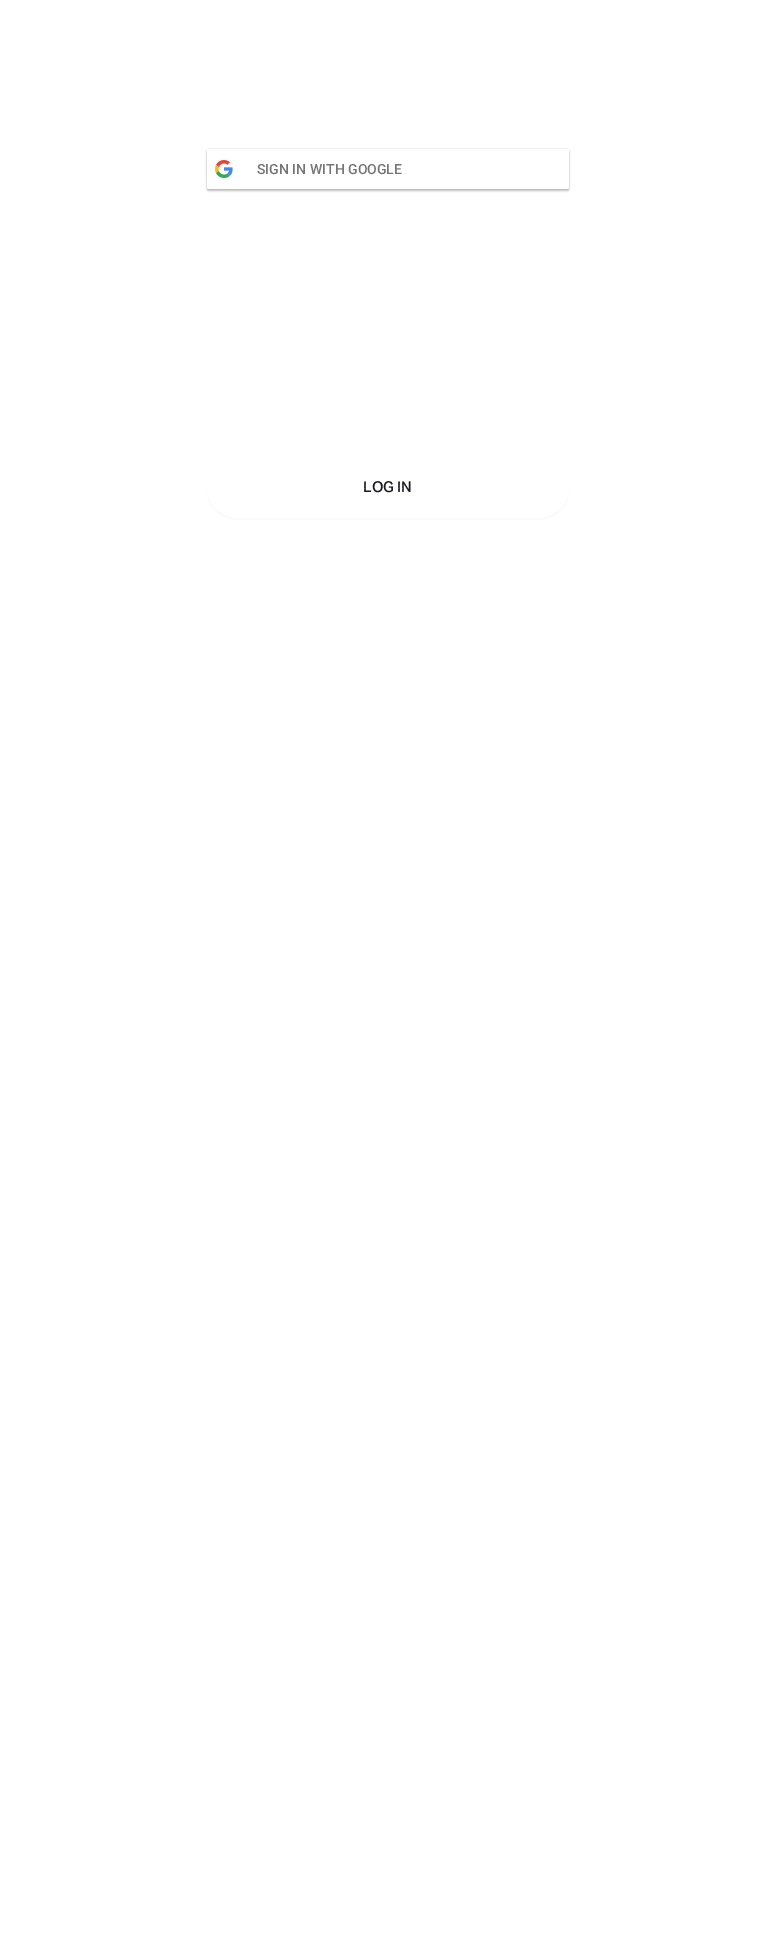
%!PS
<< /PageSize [776 1952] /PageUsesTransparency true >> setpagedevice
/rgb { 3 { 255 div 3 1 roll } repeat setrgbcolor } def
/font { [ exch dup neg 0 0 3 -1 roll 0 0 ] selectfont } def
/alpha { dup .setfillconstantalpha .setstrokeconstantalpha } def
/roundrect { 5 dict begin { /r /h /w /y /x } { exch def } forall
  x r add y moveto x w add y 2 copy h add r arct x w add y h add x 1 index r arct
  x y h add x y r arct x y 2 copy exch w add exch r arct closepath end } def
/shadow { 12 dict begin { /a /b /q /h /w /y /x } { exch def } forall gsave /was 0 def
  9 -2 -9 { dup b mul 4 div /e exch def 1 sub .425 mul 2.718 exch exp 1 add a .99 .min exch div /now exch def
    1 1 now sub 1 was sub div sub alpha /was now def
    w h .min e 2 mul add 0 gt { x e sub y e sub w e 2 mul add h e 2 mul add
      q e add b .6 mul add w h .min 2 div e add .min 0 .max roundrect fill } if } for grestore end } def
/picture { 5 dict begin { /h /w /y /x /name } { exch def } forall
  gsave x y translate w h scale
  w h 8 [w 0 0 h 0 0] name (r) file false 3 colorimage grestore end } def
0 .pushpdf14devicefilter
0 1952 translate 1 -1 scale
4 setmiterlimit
255 255 255 rgb
0 0 776 1952 rectfill
0 0 0 rgb
207 151 362 40 2 1 0.24 shadow
207 149 362 40 2 1 0.12 shadow
255 255 255 rgb
207 149 362 40 2 roundrect fill
(img/1.rgb) 215 160 18 18 picture
251 251 251 rgb
207 489 moveto 207 490 lineto 207 507 220 520 237 520 curveto 539 520 lineto 556 520 569 507 569 490 curveto 569 489 lineto 568 505 555 518 539 518 curveto 237 518 lineto 221 518 208 505 207 489 curveto closepath fill
/Roboto-Medium 14 font
117 117 117 rgb
257 174 moveto (SIGN IN WITH GOOGLE) show
/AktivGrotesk-Medium 15 font
29 29 39 rgb
363 492 moveto (LOG IN) show
.poppdf14devicefilter showpage
